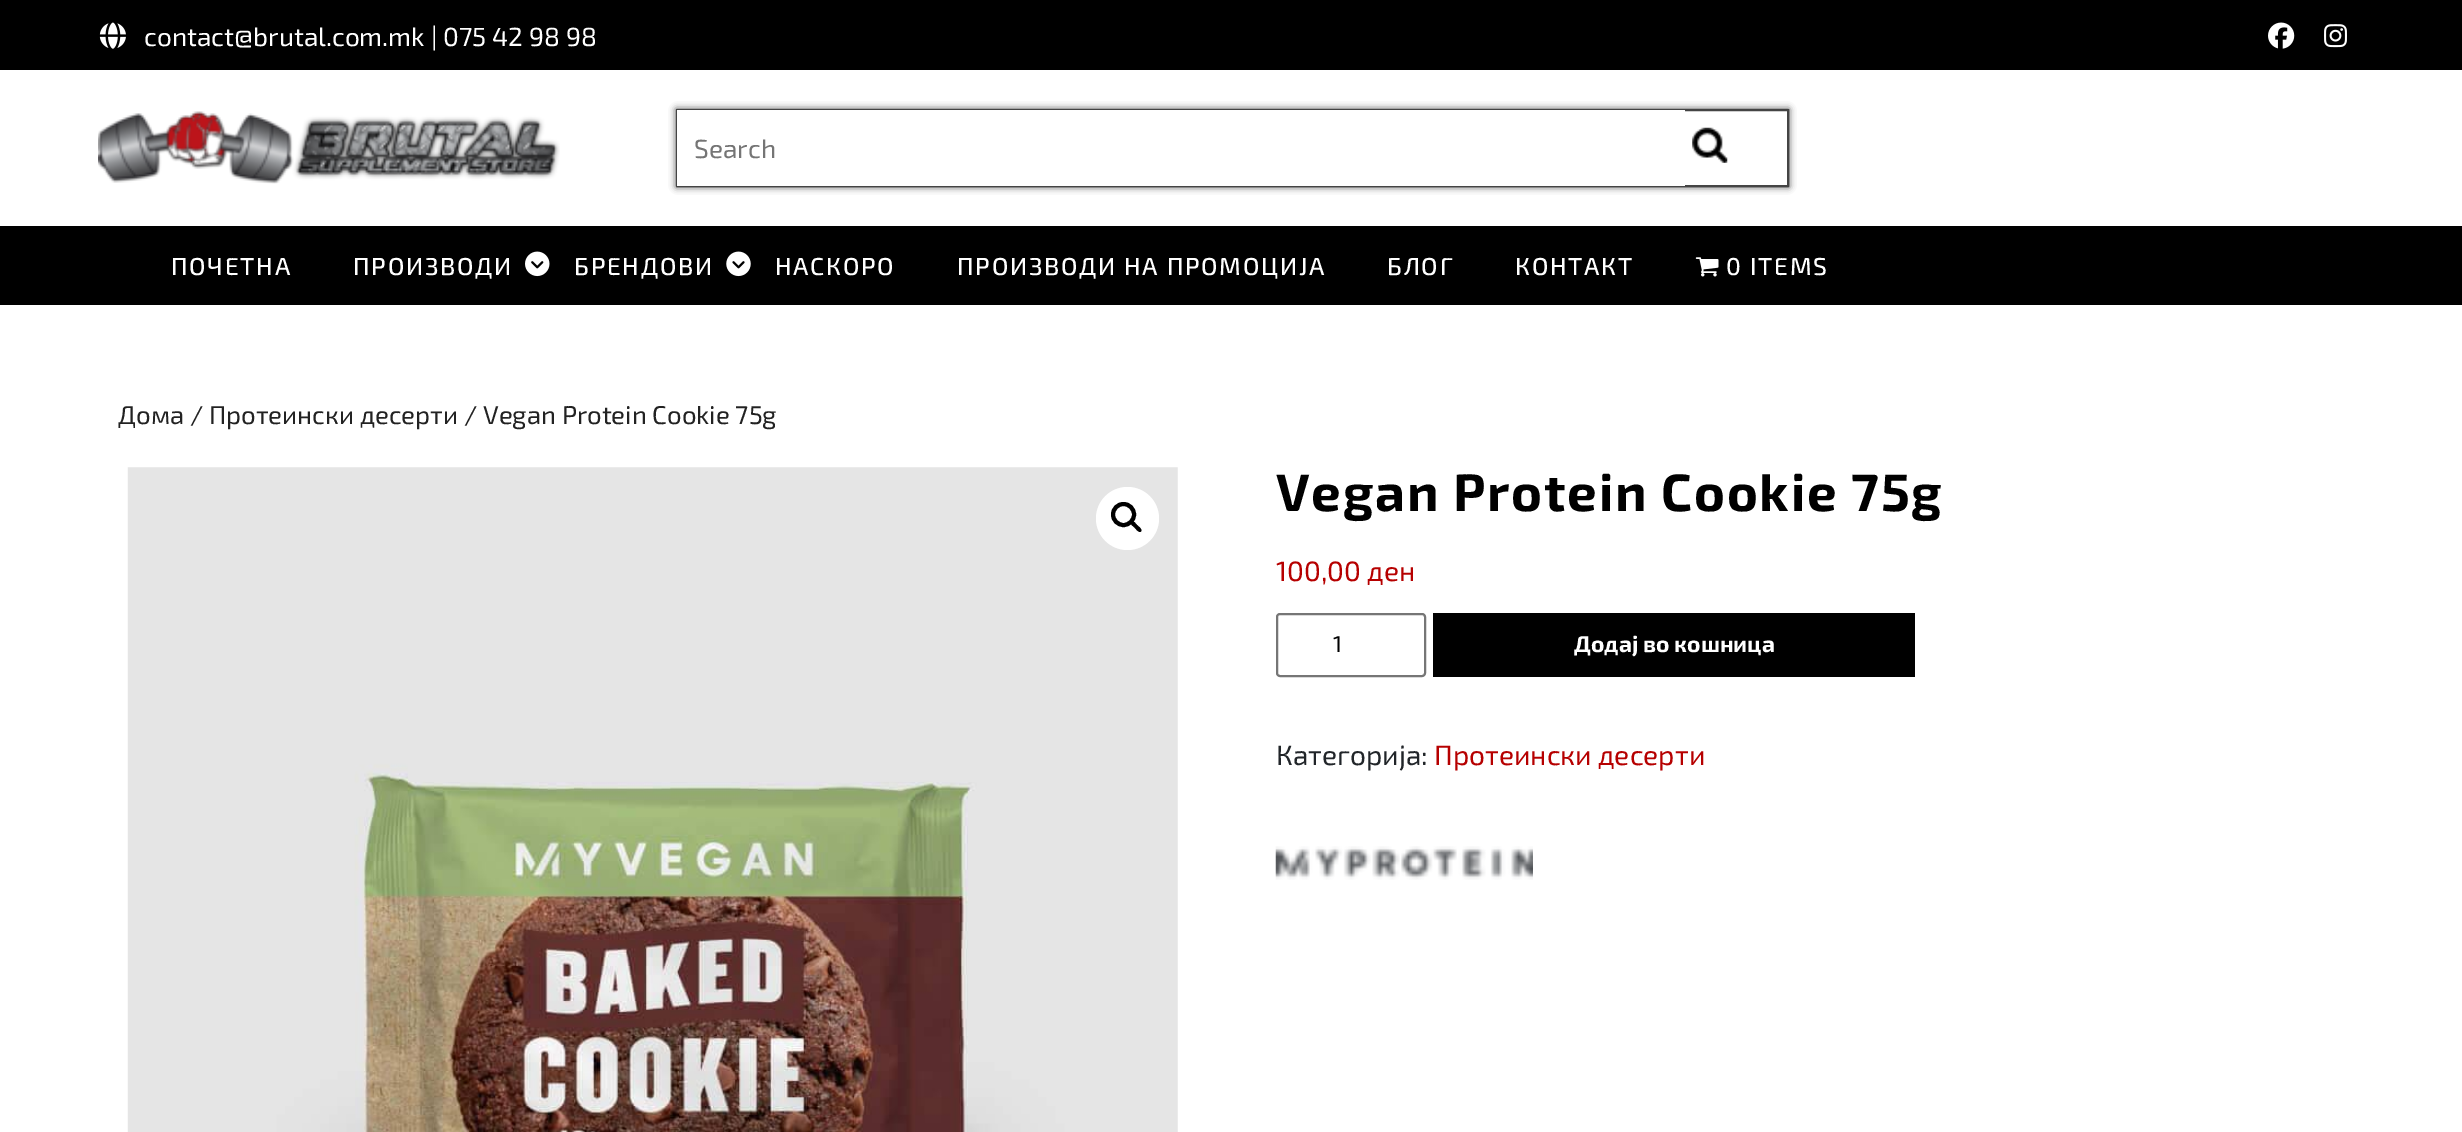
%!PS
<< /PageSize [2462 1132] /PageUsesTransparency true >> setpagedevice
/rgb { 3 { 255 div 3 1 roll } repeat setrgbcolor } def
/font { [ exch dup neg 0 0 3 -1 roll 0 0 ] selectfont } def
/alpha { dup .setfillconstantalpha .setstrokeconstantalpha } def
/circle { newpath 0 360 arc closepath } def
/roundrect { 5 dict begin { /r /h /w /y /x } { exch def } forall
  x r add y moveto x w add y 2 copy h add r arct x w add y h add x 1 index r arct
  x y h add x y r arct x y 2 copy exch w add exch r arct closepath end } def
/shadow { 12 dict begin { /a /b /q /h /w /y /x } { exch def } forall gsave /was 0 def
  9 -2 -9 { dup b mul 4 div /e exch def 1 sub .425 mul 2.718 exch exp 1 add a .99 .min exch div /now exch def
    1 1 now sub 1 was sub div sub alpha /was now def
    w h .min e 2 mul add 0 gt { x e sub y e sub w e 2 mul add h e 2 mul add
      q e add b .6 mul add w h .min 2 div e add .min 0 .max roundrect fill } if } for grestore end } def
/picture { 5 dict begin { /h /w /y /x /name } { exch def } forall
  gsave x y translate w h scale
  w h 8 [w 0 0 h 0 0] name (r) file false 3 colorimage grestore end } def
0 .pushpdf14devicefilter
0 1132 translate 1 -1 scale
4 setmiterlimit
255 255 255 rgb
0 0 2462 1132 rectfill
0 0 0 rgb
0 0 2462 70 rectfill
(img/1.rgb) 99 22 27 27 picture
(img/2.rgb) 2268 22 27 27 picture
(img/3.rgb) 2324 24 23 24 picture
(img/4.rgb) 98 111 462 73 picture
68 68 68 rgb
676 109 1113 78 0 3.5 1 shadow
255 255 255 rgb
1685 111 102 74 rectfill
68 68 68 rgb
2 setlinewidth
677 110 1111 76 rectstroke
255 255 255 rgb
677 110 1008 76 rectfill
(img/5.rgb) 1692 127 36 36 picture
0 0 0 rgb
0 226 2462 79 rectfill
(img/6.rgb) 525 251 25 26 picture
(img/7.rgb) 726 251 25 26 picture
(img/8.rgb) 1695 257 24 20 picture
(img/9.rgb) 127 467 1051 665 picture
255 255 255 rgb
1127.5 518.5 31.5 circle fill
0 0 0 rgb
4 setlinewidth
1123.5 514.5 10.5 circle stroke
1131 521.5 moveto 1133 519.5 1136 524 1137 525 curveto 1138 526 1143 529.5 1141 531.5 curveto 1139 533.5 1135.5 528.5 1134.5 527.5 curveto 1133.5 526.5 1129 523.5 1131 521.5 curveto closepath fill
118 118 118 rgb
2 setlinewidth
1277 614 148 62 3 roundrect stroke
0 0 0 rgb
1433 613 482 64 rectfill
(img/10.rgb) 1275 846 258 34 picture
/Exo2-Regular 26.25 font
255 255 255 rgb
144 46 moveto (contact@brutal.com.mk | 075 42 98 98) show
117 117 117 rgb
694 158 moveto (Search) show
/Exo2-Medium 24.5 font
255 255 255 rgb
171 275 moveto 1.75 0 (ПОЧЕТНА) ashow
353 275 moveto 1.75 0 (ПРОИЗВОДИ) ashow
574 275 moveto 1.75 0 (БРЕНДОВИ) ashow
775 275 moveto 1.75 0 (НАСКОРО) ashow
957 275 moveto 1.75 0 (ПРОИЗВОДИ НА ПРОМОЦИЈА) ashow
1387 275 moveto 1.75 0 (БЛОГ) ashow
1515 275 moveto 1.75 0 (КОНТАКТ) ashow
1726 275 moveto 1.75 0 (0 ITEMS) ashow
/Exo2-Regular 25.75 font
34 34 34 rgb
118 424 moveto (Дома / Протеински десерти / Vegan Protein Cookie 75g) show
/Exo2-Bold 52.5 font
0 0 0 rgb
1276 511 moveto 1.75 0 (Vegan Protein Cookie 75g) ashow
/Exo2-Regular 28 font
182 0 0 rgb
1276 581 moveto (100,00 ден) show
/Exo2-Regular 22.75 font
0 0 0 rgb
1333 652 moveto (1) show
/Exo2-Bold 22.75 font
255 255 255 rgb
1574 652 moveto (Додај во кошница) show
/Exo2-Regular 28 font
33 37 41 rgb
1276 765 moveto (Категорија:) show
182 0 0 rgb
1434 765 moveto (Протеински десерти) show
.poppdf14devicefilter showpage
